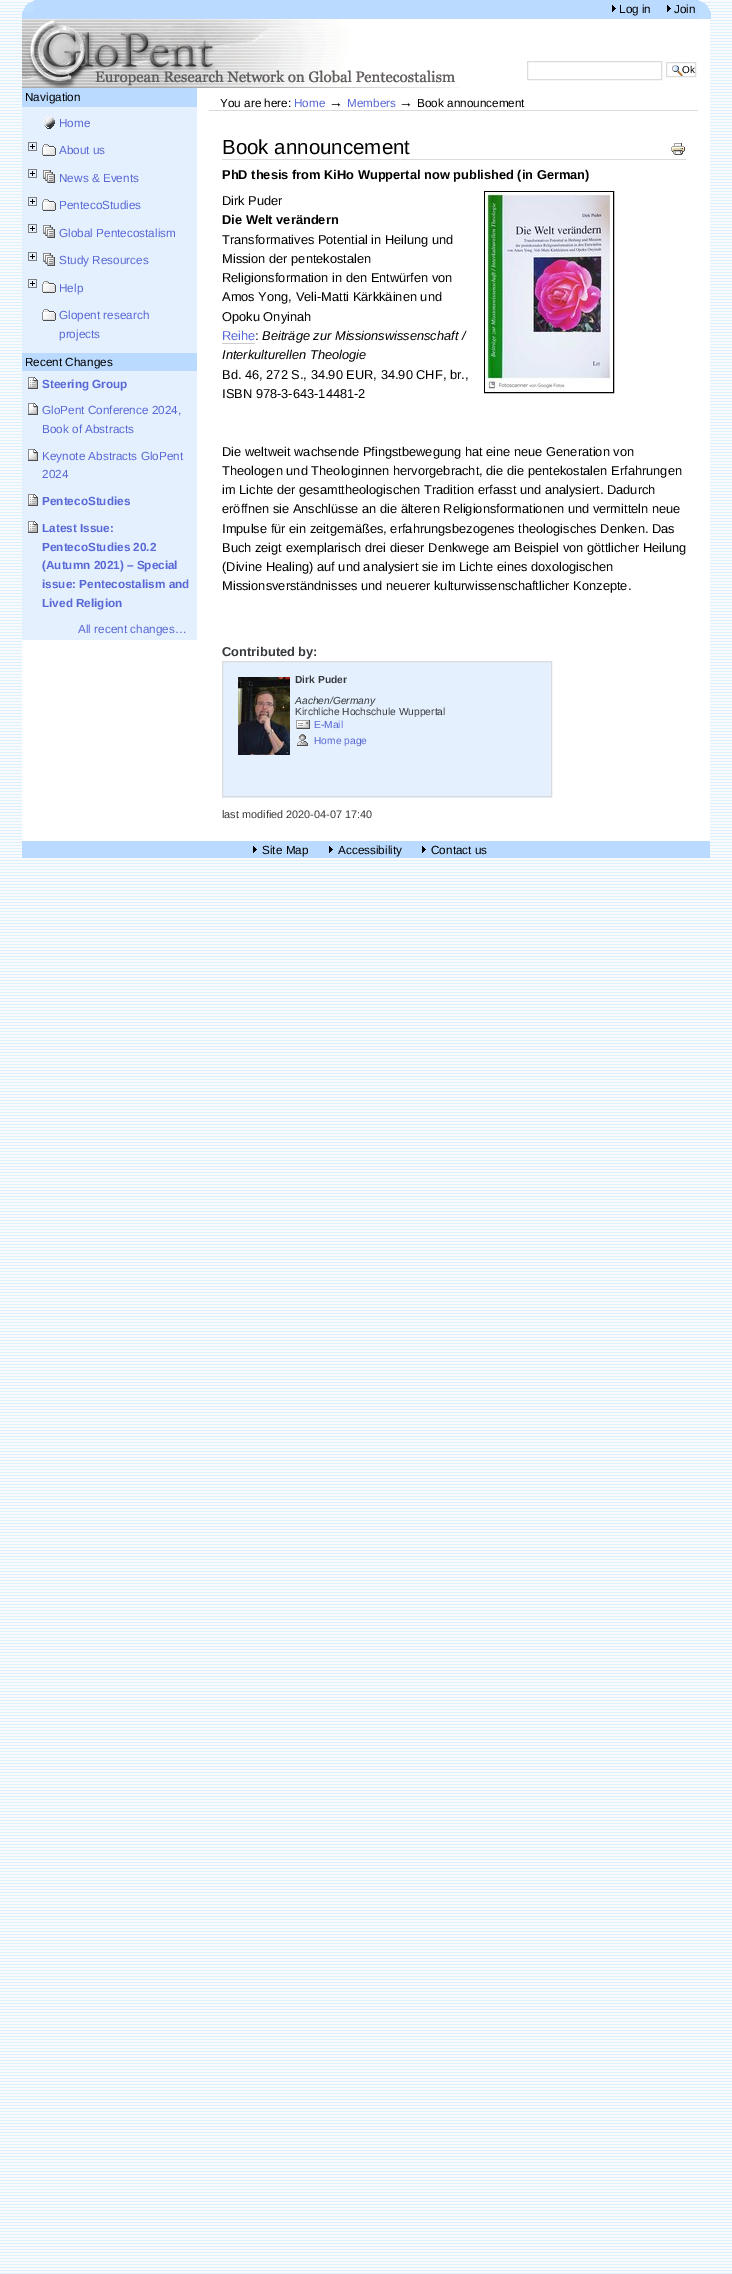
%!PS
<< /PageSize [732 2274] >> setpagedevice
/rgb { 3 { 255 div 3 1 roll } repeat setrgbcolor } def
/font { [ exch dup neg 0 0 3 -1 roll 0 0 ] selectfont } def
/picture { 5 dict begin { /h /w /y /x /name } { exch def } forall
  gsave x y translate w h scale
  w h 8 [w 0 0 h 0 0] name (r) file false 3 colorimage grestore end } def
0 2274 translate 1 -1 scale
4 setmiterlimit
255 255 255 rgb
0 0 732 2274 rectfill
(img/1.rgb) 0 0 732 2274 picture
22 19 688 822 rectfill
187 218 255 rgb
22 0 677 19 rectfill
(img/2.rgb) 22 0 12 12 picture
(img/3.rgb) 612 5 4 7 picture
(img/3.rgb) 667 5 4 7 picture
(img/4.rgb) 699 0 12 19 picture
(img/5.rgb) 22 19 438 69 picture
219 219 219 rgb
527.5 61.5 134 18 rectstroke
(img/6.rgb) 672 65 11 11 picture
666.5 62.5 29 14 rectstroke
229 240 255 rgb
22 107 175 246 rectfill
187 218 255 rgb
22 88 175 19 rectfill
(img/7.rgb) 43 115 12 14 picture
(img/8.rgb) 28 142 9 9 picture
(img/9.rgb) 42 144 14 12 picture
(img/8.rgb) 28 169 9 9 picture
(img/10.rgb) 43 170 12 13 picture
(img/8.rgb) 28 197 9 9 picture
(img/9.rgb) 42 199 14 12 picture
(img/8.rgb) 28 224 9 9 picture
(img/10.rgb) 43 225 12 13 picture
(img/8.rgb) 28 252 9 9 picture
(img/10.rgb) 43 253 12 13 picture
(img/8.rgb) 28 279 9 9 picture
(img/9.rgb) 42 281 14 12 picture
(img/9.rgb) 42 309 14 12 picture
229 240 255 rgb
22 371 175 269 rectfill
187 218 255 rgb
22 353 175 18 rectfill
(img/11.rgb) 28 377 10 12 picture
(img/12.rgb) 28 403 10 12 picture
(img/12.rgb) 28 449 10 12 picture
(img/11.rgb) 28 494 10 12 picture
(img/11.rgb) 28 521 10 12 picture
219 219 219 rgb
209 110 489 1 rectfill
222 159 464 1 rectfill
(img/13.rgb) 671 143 14 12 picture
0 0 0 rgb
484.5 191.5 129 201 rectstroke
(img/14.rgb) 485 192 128 200 picture
204 204 204 rgb
222 343 33 1 rectfill
229 240 255 rgb
222 662 330 136 rectfill
219 219 219 rgb
222.5 661.5 329 135 rectstroke
(img/15.rgb) 238 677 52 78 picture
(img/16.rgb) 296 720 14 9 picture
(img/17.rgb) 297 734 11 12 picture
187 218 255 rgb
22 841 688 17 rectfill
(img/3.rgb) 253 846 4 7 picture
(img/3.rgb) 329 846 4 7 picture
(img/3.rgb) 422 846 4 7 picture
/LiberationSans-Regular 11.75 font
0 0 0 rgb
619 13 moveto (Log in) show
674 13 moveto (Join) show
/LiberationSans-Regular 10 font
682 73 moveto (Ok) show
/LiberationSans-Regular 11.75 font
25 101 moveto (Navigation) show
88 105 213 rgb
[
  [(Home) 59 127]
  [(About us) 59 154]
  [(News & Events) 59 182]
  [(PentecoStudies) 59 209]
  [(Global Pentecostalism) 59 237]
  [(Study Resources) 59 264]
  [(Help) 59 292]
  [(Glopent research) 59 319]
  [(projects) 59 338]
] { aload pop moveto show } forall
0 0 0 rgb
25 366 moveto (Recent Changes) show
/LiberationSans-Bold 11.75 font
88 105 213 rgb
42 388 moveto (Steering Group) show
/LiberationSans-Regular 11.75 font
[
  [(GloPent Conference 2024,) 42 414]
  [(Book of Abstracts) 42 433]
  [(Keynote Abstracts GloPent) 42 460]
  [(2024) 42 478]
] { aload pop moveto show } forall
/LiberationSans-Bold 11.75 font
[
  [(PentecoStudies) 42 505]
  [(Latest Issue:) 42 532]
  [(PentecoStudies 20.2) 42 551]
  [(\(Autumn 2021\) – Special) 42 569]
  [(issue: Pentecostalism and) 42 588]
  [(Lived Religion) 42 607]
] { aload pop moveto show } forall
/LiberationSans-Regular 11.75 font
78 633 moveto (All recent changes…) show
0 0 0 rgb
220 107 moveto (You are here:) show
88 105 213 rgb
294 107 moveto (Home) show
/LiberationSans-Regular 14 font
0 0 0 rgb
329 107 moveto (→) show
/LiberationSans-Regular 11.75 font
88 105 213 rgb
347 107 moveto (Members) show
/LiberationSans-Regular 14 font
0 0 0 rgb
399 107 moveto (→) show
/LiberationSans-Regular 11.75 font
417 107 moveto (Book announcement) show
/LiberationSans-Regular 20.5 font
222 154 moveto (Book announcement) show
/LiberationSans-Bold 12.85 font
222 179 moveto (PhD thesis from KiHo Wuppertal now published \(in German\)) show
/LiberationSans-Regular 12.85 font
222 205 moveto (Dirk Puder) show
/LiberationSans-Bold 12.85 font
222 224 moveto (Die Welt verändern) show
/LiberationSans-Regular 12.85 font
[
  [(Transformatives Potential in Heilung und) 222 244]
  [(Mission der pentekostalen) 222 263]
  [(Religionsformation in den Entwürfen von) 222 282]
  [(Amos Yong, Veli-Matti Kärkkäinen und) 222 301]
  [(Opoku Onyinah) 222 321]
] { aload pop moveto show } forall
88 105 213 rgb
222 340 moveto (Reihe) show
0 0 0 rgb
255 340 moveto (:) show
/LiberationSans-Italic 12.85 font
262 340 moveto (Beiträge zur Missionswissenschaft /) show
222 359 moveto (Interkulturellen Theologie) show
/LiberationSans-Regular 12.85 font
[
  [(Bd. 46, 272 S., 34.90 EUR, 34.90 CHF, br.,) 222 379]
  [(ISBN 978-3-643-14481-2) 222 398]
  [(Die weltweit wachsende Pfingstbewegung hat eine neue Generation von) 222 456]
  [(Theologen und Theologinnen hervorgebracht, die die pentekostalen Erfahrungen) 222 475]
  [(im Lichte der gesamttheologischen Tradition erfasst und analysiert. Dadurch) 222 494]
  [(eröffnen sie Anschlüsse an die älteren Religionsformationen und vermitteln neue) 222 513]
  [(Impulse für ein zeitgemäßes, erfahrungsbezogenes theologisches Denken. Das) 222 533]
  [(Buch zeigt exemplarisch drei dieser Denkwege am Beispiel von göttlicher Heilung) 222 552]
  [(\(Divine Healing\) auf und analysiert sie im Lichte eines doxologischen) 222 571]
  [(Missionsverständnisses und neuerer kulturwissenschaftlicher Konzepte.) 222 590]
] { aload pop moveto show } forall
/LiberationSans-Bold 12.85 font
54 57 60 rgb
222 656 moveto (Contributed by:) show
/LiberationSans-Bold 10.25 font
295 683 moveto (Dirk Puder) show
/LiberationSans-Italic 10.25 font
295 704 moveto (Aachen/Germany) show
/LiberationSans-Regular 10.25 font
295 715 moveto (Kirchliche Hochschule Wuppertal) show
88 105 213 rgb
314 728 moveto (E-Mail) show
314 744 moveto (Home page) show
/LiberationSans-Regular 10.9 font
54 57 60 rgb
222 818 moveto (last modified 2020-04-07 17:40) show
/LiberationSans-Regular 11.75 font
0 0 0 rgb
[
  [(Site Map) 262 854]
  [(Accessibility) 338 854]
  [(Contact us) 431 854]
] { aload pop moveto show } forall
showpage
